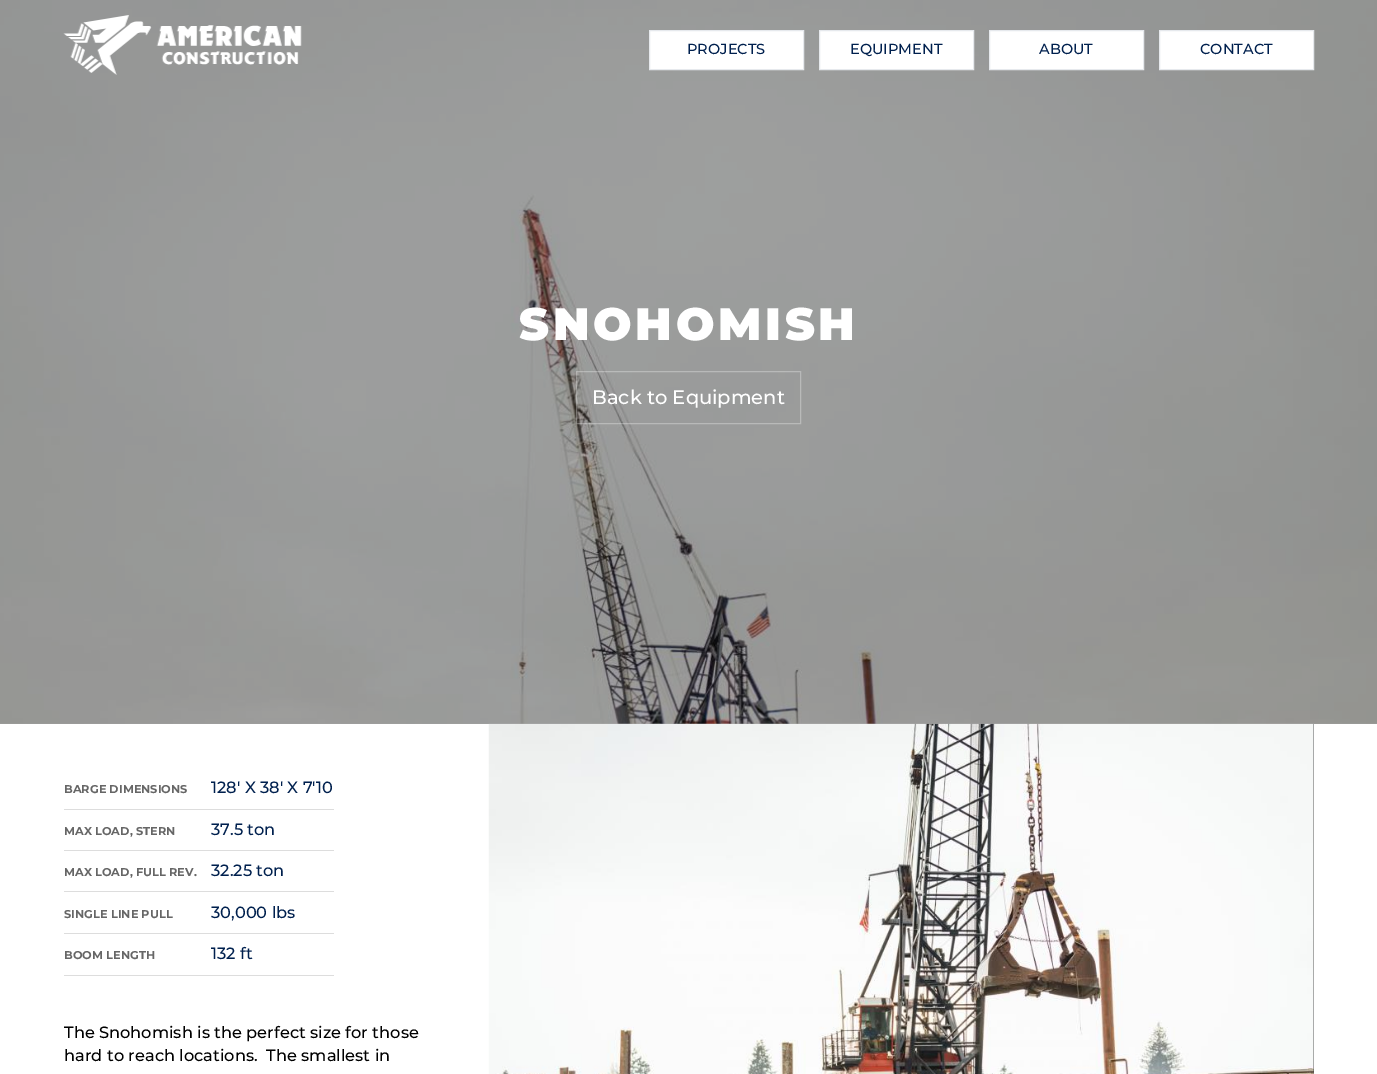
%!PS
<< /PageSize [1377 1074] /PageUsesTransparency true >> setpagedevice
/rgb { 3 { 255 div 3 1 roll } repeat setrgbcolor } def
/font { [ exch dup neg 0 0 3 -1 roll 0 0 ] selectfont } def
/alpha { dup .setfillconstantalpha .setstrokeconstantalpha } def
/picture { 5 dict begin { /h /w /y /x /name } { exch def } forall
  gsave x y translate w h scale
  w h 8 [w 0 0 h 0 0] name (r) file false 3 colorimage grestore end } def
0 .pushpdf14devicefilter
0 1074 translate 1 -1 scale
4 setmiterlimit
255 255 255 rgb
0 0 1377 1074 rectfill
(img/2.rgb) 0 0 1377 724 picture
(img/1.rgb) 63 15 239 60 picture
649.5 30.5 moveto 803.5 30.5 lineto 803.5 69.5 lineto 649.5 69.5 lineto closepath gsave fill grestore
230 233 237 rgb
stroke
255 255 255 rgb
819.5 30.5 moveto 973.5 30.5 lineto 973.5 69.5 lineto 819.5 69.5 lineto closepath gsave fill grestore
230 233 237 rgb
stroke
255 255 255 rgb
989.5 30.5 moveto 1143.5 30.5 lineto 1143.5 69.5 lineto 989.5 69.5 lineto closepath gsave fill grestore
230 233 237 rgb
stroke
255 255 255 rgb
1159.5 30.5 moveto 1313.5 30.5 lineto 1313.5 69.5 lineto 1159.5 69.5 lineto closepath gsave fill grestore
230 233 237 rgb
stroke
0.3 alpha
255 255 255 rgb
576.5 371.5 224 52 rectstroke
1 alpha
[
  [64 809 270 1 221 221 221]
  [64 850 270 1 221 221 221]
  [64 891 270 1 221 221 221]
  [64 933 270 1 221 221 221]
  [64 975 270 1 221 221 221]
  [1313 724 1 350 68 68 68]
] { aload pop rgb rectfill } forall
(img/3.rgb) 488 723 826 351 picture
/Montserrat-Medium 14.5 font
0 32 78 rgb
[
  [(PROJECTS) 687 54]
  [(EQUIPMENT) 850 54]
  [(ABOUT) 1039 54]
  [(CONTACT) 1200 54]
] { aload pop moveto show } forall
/Montserrat-Black 45.5 font
255 255 255 rgb
519 340 moveto 3.75 0 (SNOHOMISH) ashow
/Montserrat-Medium 19.5 font
592 404 moveto (Back to Equipment) show
/Montserrat-Bold 11.4 font
102 102 102 rgb
64 793 moveto (BARGE DIMENSIONS) show
/Montserrat-Medium 16.25 font
0 32 78 rgb
211 793 moveto (128' X 38' X 7'10) show
/Montserrat-Bold 11.4 font
102 102 102 rgb
64 835 moveto (MAX LOAD, STERN) show
/Montserrat-Medium 16.25 font
0 32 78 rgb
211 835 moveto (37.5 ton) show
/Montserrat-Bold 11.4 font
102 102 102 rgb
64 876 moveto (MAX LOAD, FULL REV.) show
/Montserrat-Medium 16.25 font
0 32 78 rgb
211 876 moveto (32.25 ton) show
/Montserrat-Bold 11.4 font
102 102 102 rgb
64 918 moveto (SINGLE LINE PULL) show
/Montserrat-Medium 16.25 font
0 32 78 rgb
211 918 moveto (30,000 lbs) show
/Montserrat-Bold 11.4 font
102 102 102 rgb
64 959 moveto (BOOM LENGTH) show
/Montserrat-Medium 16.25 font
0 32 78 rgb
211 959 moveto (132 ft) show
0 0 0 rgb
64 1038 moveto (The Snohomish is the perfect size for those) show
64 1061 moveto (hard to reach locations.  The smallest in) show
.poppdf14devicefilter showpage
